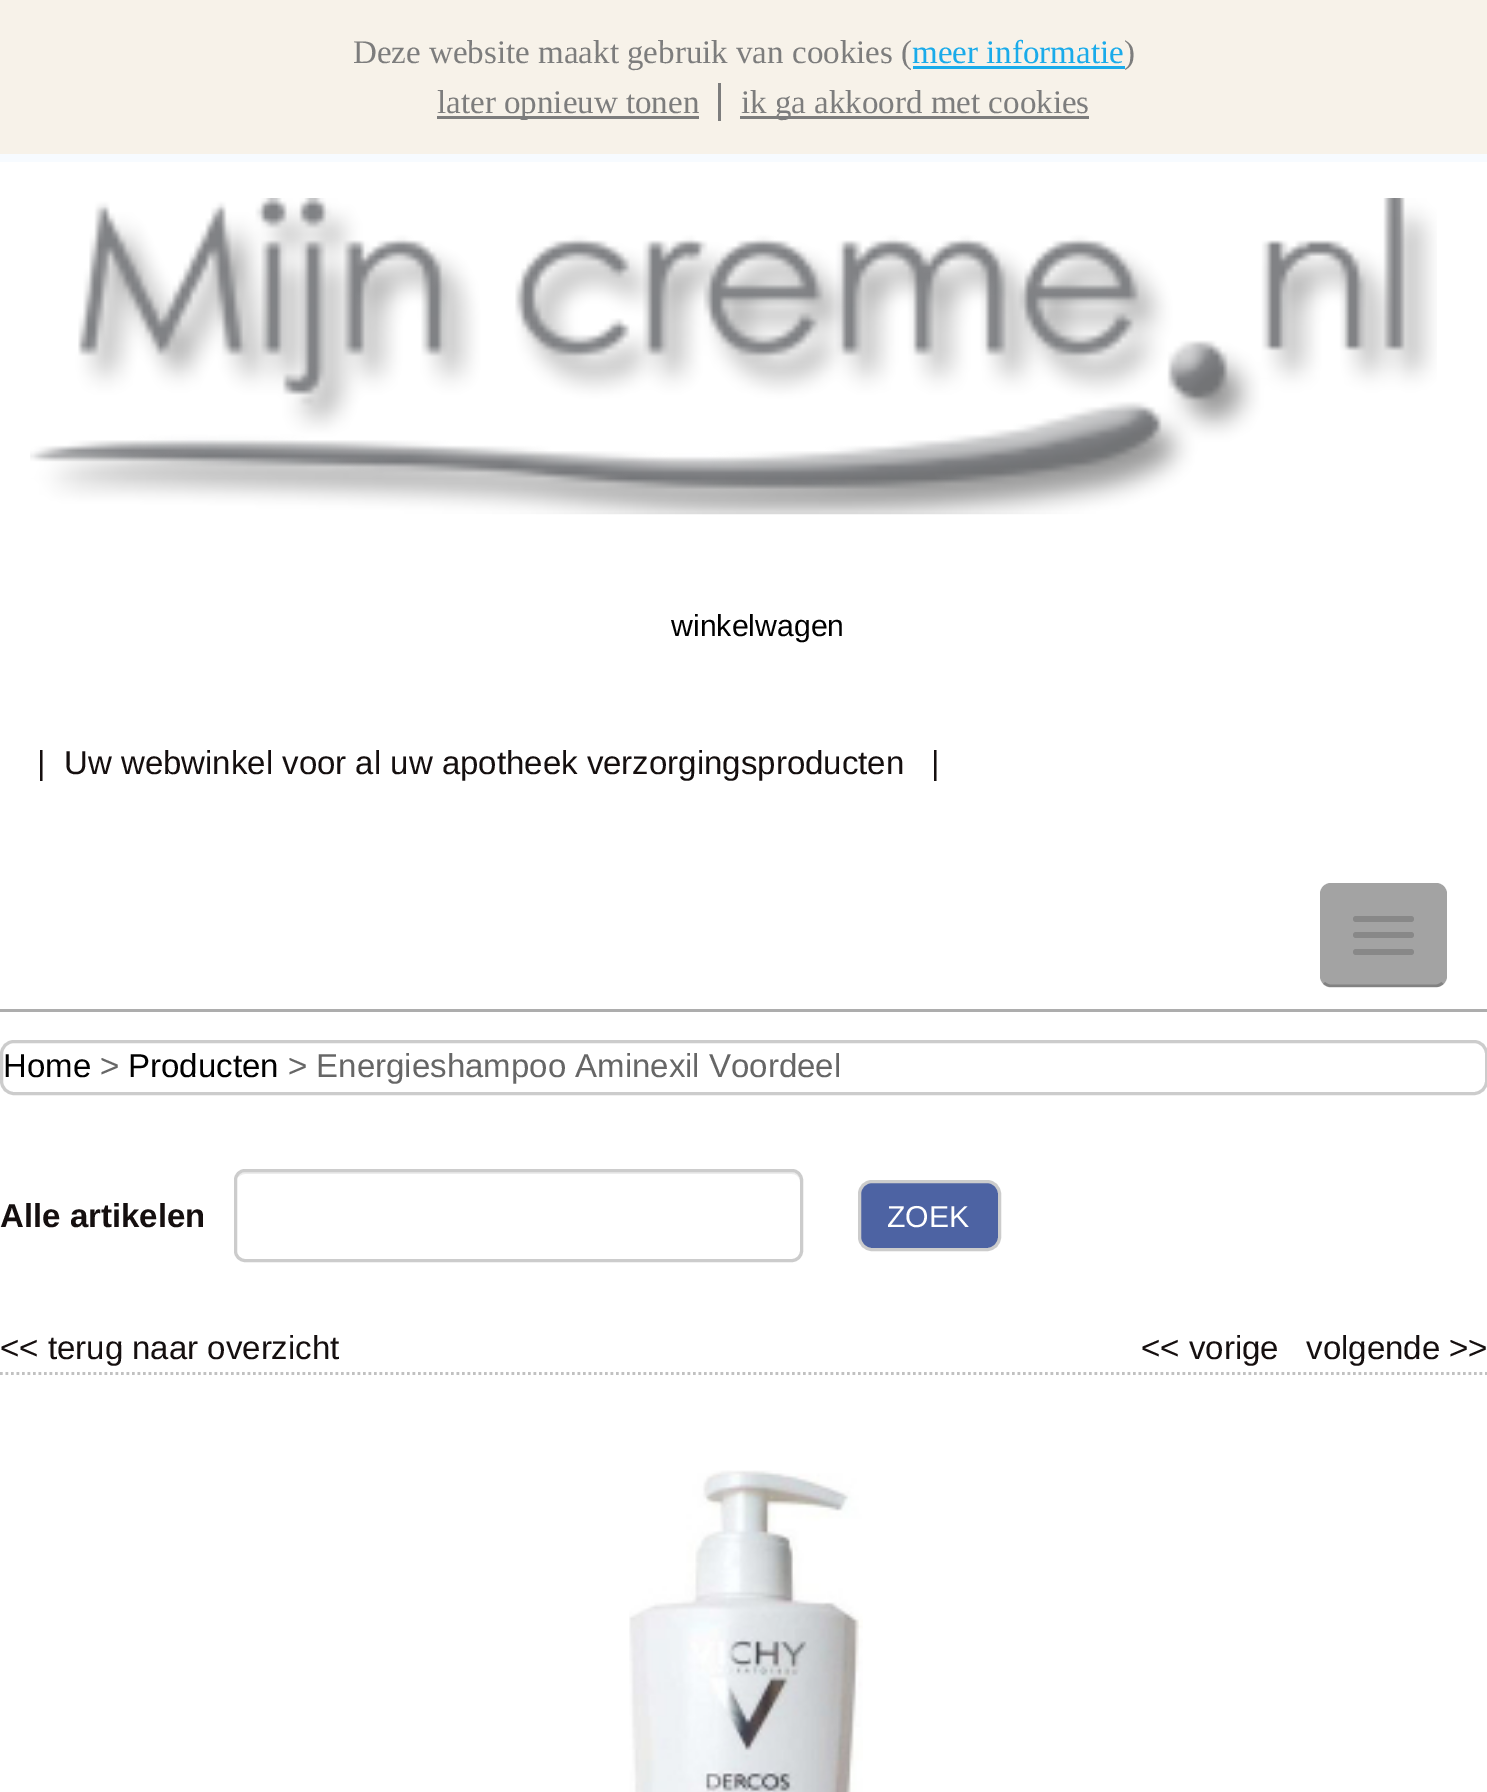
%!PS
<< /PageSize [1487 1792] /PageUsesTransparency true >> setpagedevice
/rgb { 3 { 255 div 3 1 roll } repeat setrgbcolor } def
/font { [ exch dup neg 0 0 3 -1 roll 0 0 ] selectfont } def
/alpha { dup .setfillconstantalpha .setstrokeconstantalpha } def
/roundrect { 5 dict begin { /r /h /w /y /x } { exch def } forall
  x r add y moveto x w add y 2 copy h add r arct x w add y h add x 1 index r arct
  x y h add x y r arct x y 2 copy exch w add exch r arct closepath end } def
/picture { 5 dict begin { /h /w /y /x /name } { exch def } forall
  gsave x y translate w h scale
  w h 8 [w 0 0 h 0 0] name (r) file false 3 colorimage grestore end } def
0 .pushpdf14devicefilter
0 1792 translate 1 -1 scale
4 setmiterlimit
255 255 255 rgb
0 0 1487 1792 rectfill
[
  [0 0 1487 154 247 242 233]
  [0 154 1487 8 247 251 255]
  [913 66 212 3 26 171 234]
  [437 116 262 3 125 125 125]
  [718 83 3 38 125 125 125]
  [740 116 349 3 125 125 125]
] { aload pop rgb rectfill } forall
(img/1.rgb) 30 198 1407 317 picture
163 163 163 rgb
1320 883 127 104 11 roundrect fill
0.2 alpha
0 0 0 rgb
2.8 setlinewidth
1442.5 983 moveto 1440.5 985 1438 986 1435.5 986 curveto 1331 986 lineto 1328.5 986 1326 985 1324 983 curveto stroke
1 alpha
136 136 136 rgb
1353 916 61 6 3 roundrect fill
1353 932 61 6 3 roundrect fill
1353 949 61 6 3 roundrect fill
173 173 173 rgb
0 1009 1487 3 rectfill
204 204 204 rgb
3 setlinewidth
1.5 1041.5 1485 52 12.5 roundrect stroke
236 236 236 rgb
245 1174 moveto 792 1174 lineto 797 1174 800 1178 800 1182 curveto 800 1180 lineto 800 1176 796 1172 792 1172 curveto 245 1172 lineto 241 1172 238 1175 237 1178 curveto 239 1176 242 1174 245 1174 curveto closepath fill
204 204 204 rgb
235.5 1170.5 566 90 9.5 roundrect stroke
77 99 163 rgb
859.5 1181.5 140 68 12.5 roundrect gsave fill grestore
204 204 204 rgb
stroke
193 193 193 rgb
2.8 setlinewidth
[2.75 2.75] 0 setdash
0 1373.5 moveto 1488 1373.5 lineto stroke
(img/2.rgb) 629 1470 234 322 picture
/LiberationSerif-Regular 33 font
125 125 125 rgb
353 63 moveto (Deze website maakt gebruik van cookies \() show
26 171 234 rgb
912 63 moveto (meer informatie) show
125 125 125 rgb
[
  [(\)) 1124 63]
  [(later opnieuw tonen) 437 113]
  [(ik ga akkoord met cookies) 741 113]
] { aload pop moveto show } forall
/LiberationSans-Regular 30.25 font
0 0 0 rgb
671 636 moveto (winkelwagen) show
/LiberationSans-Regular 33 font
21 15 15 rgb
37 774 moveto (|  Uw webwinkel voor al uw apotheek verzorgingsproducten   |) show
0 0 0 rgb
3 1077 moveto (Home) show
102 102 102 rgb
100 1077 moveto (>) show
0 0 0 rgb
128 1077 moveto (Producten) show
102 102 102 rgb
288 1077 moveto (> Energieshampoo Aminexil Voordeel) show
/LiberationSans-Bold 33 font
21 15 15 rgb
0 1227 moveto (Alle artikelen) show
/LiberationSans-Regular 30.25 font
255 255 255 rgb
887 1227 moveto (ZOEK) show
/LiberationSans-Regular 33 font
21 15 15 rgb
[
  [(<< terug naar overzicht) 0 1359]
  [(<< vorige) 1141 1359]
  [(volgende >>) 1306 1359]
] { aload pop moveto show } forall
.poppdf14devicefilter showpage
